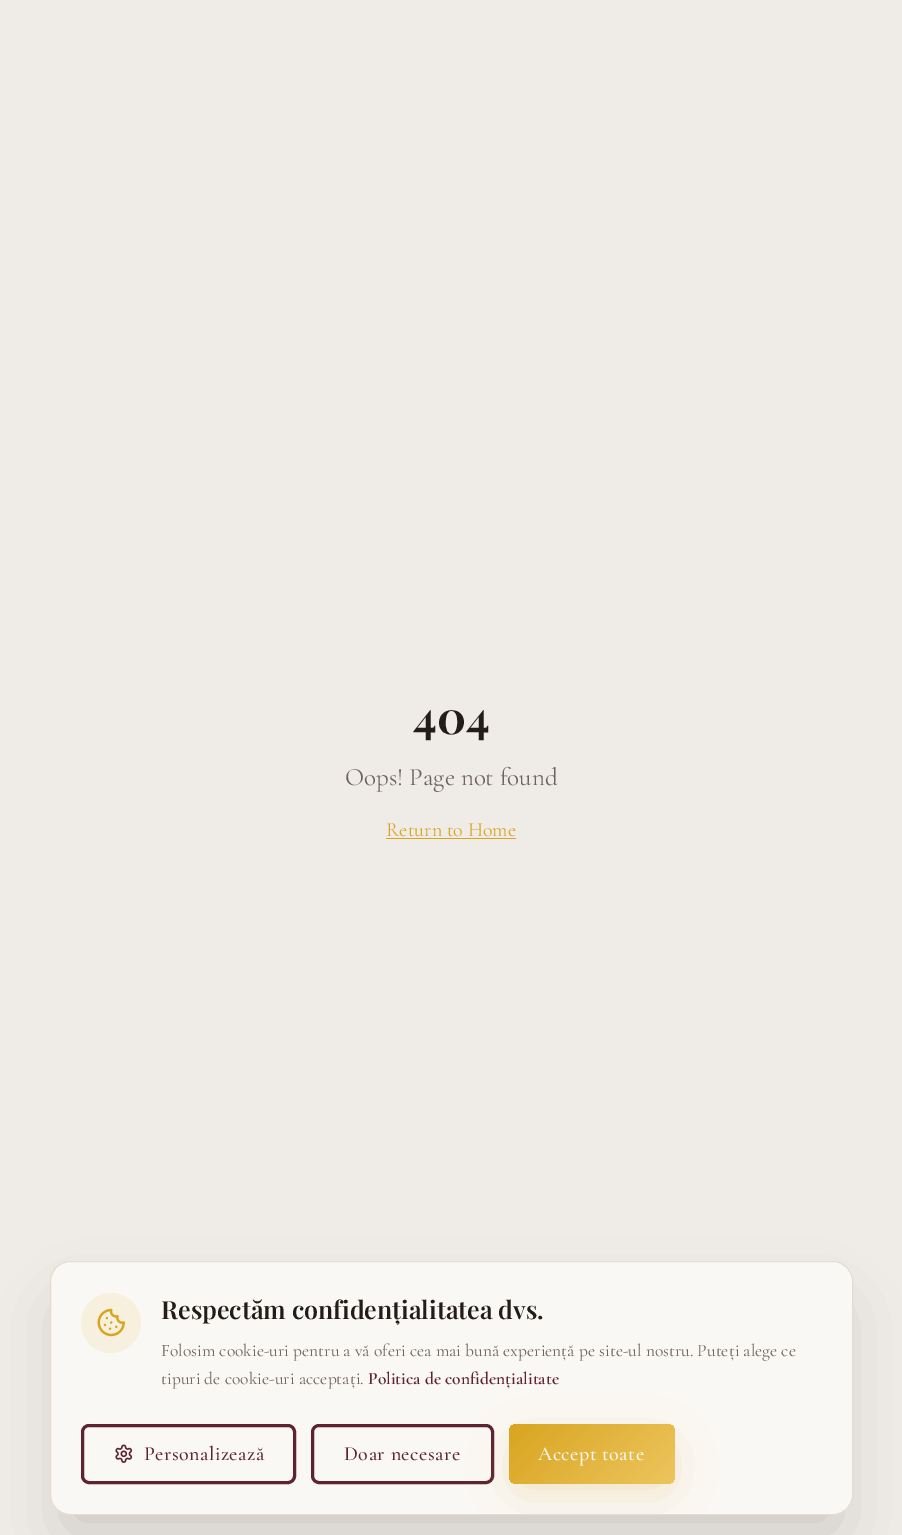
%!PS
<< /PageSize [902 1535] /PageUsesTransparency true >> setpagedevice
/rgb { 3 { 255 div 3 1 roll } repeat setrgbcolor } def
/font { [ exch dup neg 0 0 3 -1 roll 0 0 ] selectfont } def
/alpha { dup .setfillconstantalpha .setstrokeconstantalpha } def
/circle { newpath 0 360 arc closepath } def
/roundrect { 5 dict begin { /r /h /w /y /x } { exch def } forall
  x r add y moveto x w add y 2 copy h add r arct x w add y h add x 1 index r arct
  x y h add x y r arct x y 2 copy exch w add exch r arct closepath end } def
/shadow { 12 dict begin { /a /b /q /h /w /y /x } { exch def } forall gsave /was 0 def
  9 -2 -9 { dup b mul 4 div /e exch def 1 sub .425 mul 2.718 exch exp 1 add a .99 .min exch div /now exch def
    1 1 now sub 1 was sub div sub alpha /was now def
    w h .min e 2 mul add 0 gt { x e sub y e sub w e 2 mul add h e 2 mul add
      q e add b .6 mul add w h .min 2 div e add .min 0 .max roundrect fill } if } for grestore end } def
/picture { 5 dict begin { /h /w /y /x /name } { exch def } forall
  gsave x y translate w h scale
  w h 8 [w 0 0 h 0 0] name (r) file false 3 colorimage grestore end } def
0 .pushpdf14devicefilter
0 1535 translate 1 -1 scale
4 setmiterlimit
239 236 231 rgb
0 0 902 1535 rectfill
217 165 32 rgb
386 838 130 1 rectfill
0 0 0 rgb
65 1308 773 223 5 31 0.15 shadow
250 248 244 rgb
50.5 1261.5 802 253 19.5 roundrect gsave fill grestore
228 221 205 rgb
stroke
247 240 223 rgb
111 1323 30 circle fill
(img/1.rgb) 97 1308 28 29 picture
94 34 49 rgb
3 setlinewidth
82.5 1425.5 212 57 6.5 roundrect stroke
(img/2.rgb) 115 1444 18 19 picture
312.5 1425.5 180 57 6.5 roundrect stroke
gsave
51 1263 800 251 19 roundrect clip newpath
217 165 32 rgb
521 1449 142 35 0 25 0.3 shadow
grestore
gsave 509 1424 166 60 8 roundrect clip newpath
<< /ShadingType 2 /ColorSpace /DeviceRGB /Coords [535 1397 648 1510] /Extend [true true] /Function << /FunctionType 2 /Domain [0 1] /C0 [0.851 0.647 0.125] /C1 [0.929 0.773 0.369] /N 1 >> >> shfill grestore
/PlayfairDisplay-Bold 45 font
35 29 26 rgb
413 734 moveto (404) show
/CormorantGaramond-Regular 25 font
112 99 92 rgb
345 785 moveto (Oops! Page not found) show
/CormorantGaramond-Regular 20 font
217 165 32 rgb
386 836 moveto (Return to Home) show
/PlayfairDisplay-SemiBold 25 font
35 29 26 rgb
161 1319 moveto (Respectăm confidențialitatea dvs.) show
/CormorantGaramond-Regular 17.5 font
112 99 92 rgb
161 1356 moveto (Folosim cookie-uri pentru a vă oferi cea mai bună experiență pe site-ul nostru. Puteți alege ce) show
161 1384 moveto (tipuri de cookie-uri acceptați.) show
/CormorantGaramond-SemiBold 17.5 font
94 34 49 rgb
368 1384 moveto (Politica de confidențialitate) show
/CormorantGaramond-Medium 20 font
144 1460 moveto 0.5 0 (Personalizează) ashow
344 1460 moveto 0.5 0 (Doar necesare) ashow
252 250 248 rgb
538 1460 moveto 0.5 0 (Accept toate) ashow
.poppdf14devicefilter showpage
